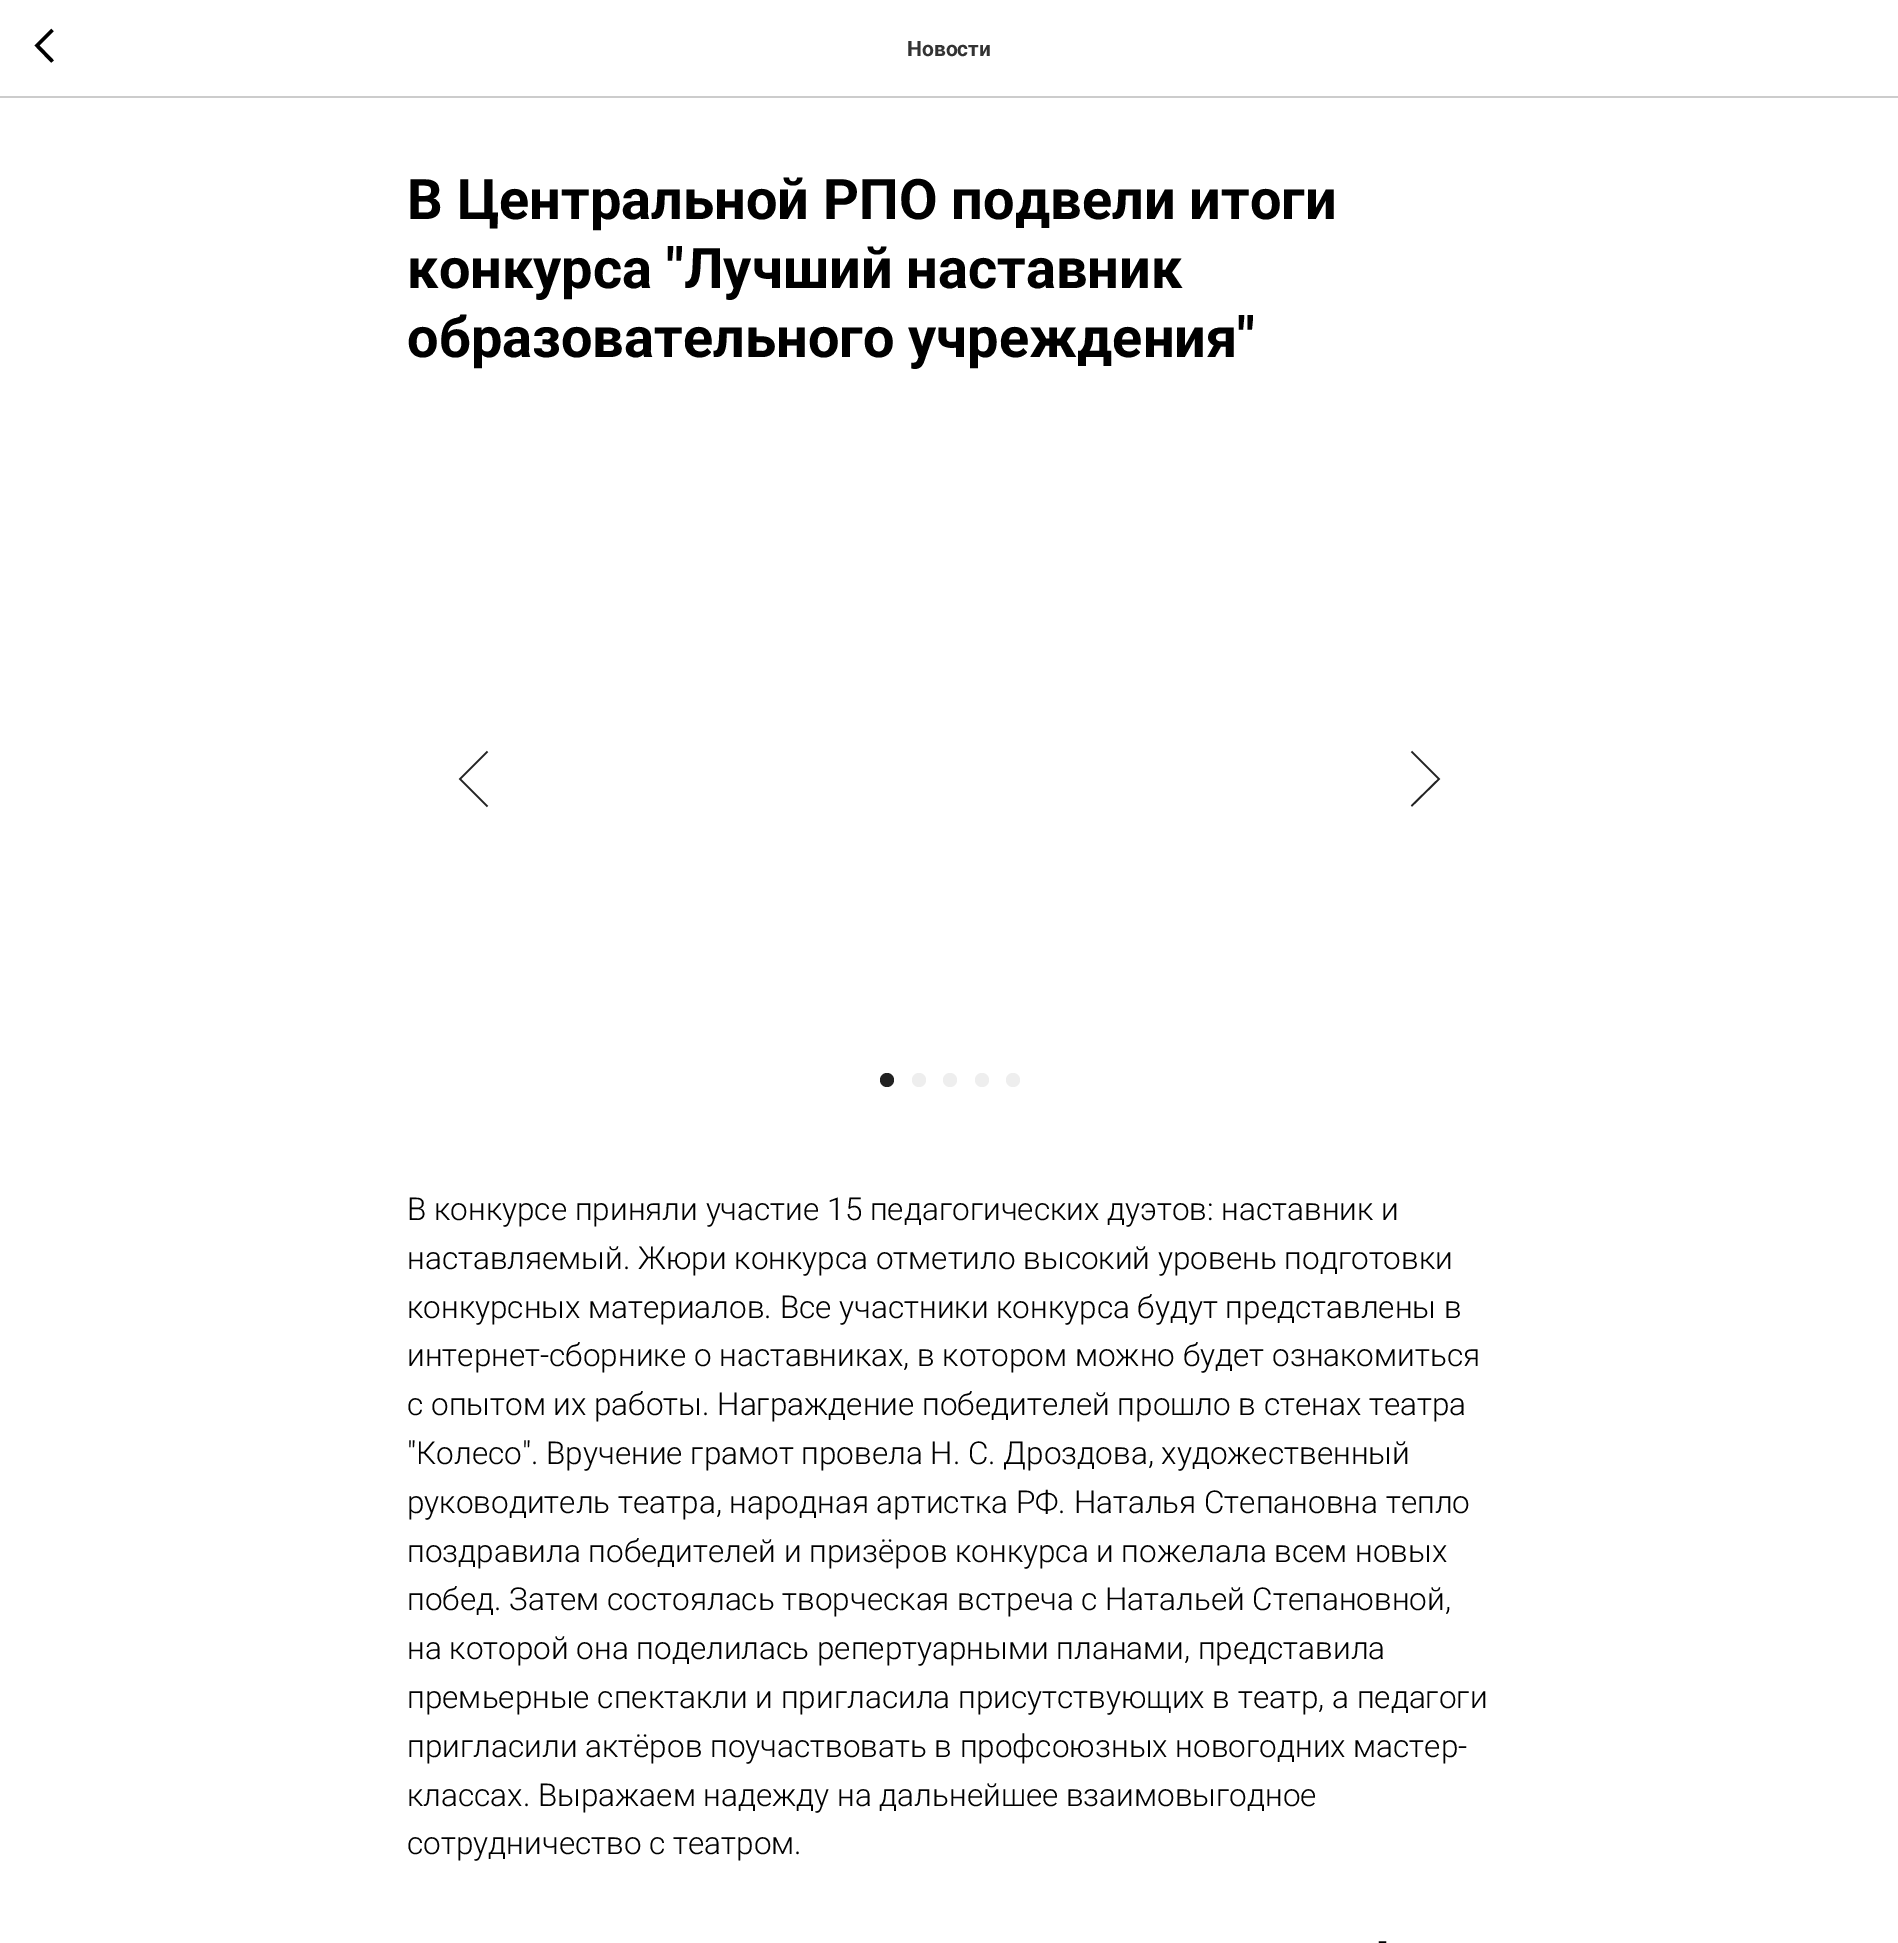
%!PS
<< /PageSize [1898 1943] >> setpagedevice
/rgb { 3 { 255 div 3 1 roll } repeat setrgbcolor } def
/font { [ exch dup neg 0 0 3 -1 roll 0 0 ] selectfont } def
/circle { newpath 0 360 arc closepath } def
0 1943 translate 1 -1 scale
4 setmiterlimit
255 255 255 rgb
0 0 1898 1943 rectfill
204 204 204 rgb
0 96 1898 2 rectfill
0 0 0 rgb
3.5 setlinewidth
52.5 61.5 moveto 37 45.5 lineto 52.5 30 lineto stroke
34 34 34 rgb
1.7 setlinewidth
487.5 806.5 moveto 460 779 lineto 487.5 751.5 lineto stroke
1411.5 751.5 moveto 1439 779 lineto 1411.5 806 lineto stroke
887 1080 7 circle fill
238 238 238 rgb
919 1080 7 circle fill
950 1080 7 circle fill
982 1080 7 circle fill
1013 1080 7 circle fill
/Roboto-Bold 21 font
51 51 51 rgb
907 56 moveto (Новости) show
/Roboto-Bold 56 font
0 0 0 rgb
[
  [(В Центральной РПО подвели итоги) 407 219]
  [(конкурса "Лучший наставник) 407 288]
  [(образовательного учреждения") 407 357]
] { aload pop moveto show } forall
/Roboto-Light 31.5 font
[
  [(В конкурсе приняли участие 15 педагогических дуэтов: наставник и) 407 1220]
  [(наставляемый. Жюри конкурса отметило высокий уровень подготовки) 407 1269]
  [(конкурсных материалов. Все участники конкурса будут представлены в) 407 1318]
  [(интернет-сборнике о наставниках, в котором можно будет ознакомиться) 407 1366]
  [(с опытом их работы. Награждение победителей прошло в стенах театра) 407 1415]
  [("Колесо". Вручение грамот провела Н. С. Дроздова, художественный) 407 1464]
  [(руководитель театра, народная артистка РФ. Наталья Степановна тепло) 407 1513]
  [(поздравила победителей и призёров конкурса и пожелала всем новых) 407 1562]
  [(побед. Затем состоялась творческая встреча с Натальей Степановной,) 407 1610]
  [(на которой она поделилась репертуарными планами, представила) 407 1659]
  [(премьерные спектакли и пригласила присутствующих в театр, а педагоги) 407 1708]
  [(пригласили актёров поучаствовать в профсоюзных новогодних мастер-) 407 1757]
  [(классах. Выражаем надежду на дальнейшее взаимовыгодное) 407 1806]
  [(сотрудничество с театром.) 407 1854]
  [(-) 1378 1952]
] { aload pop moveto show } forall
showpage
